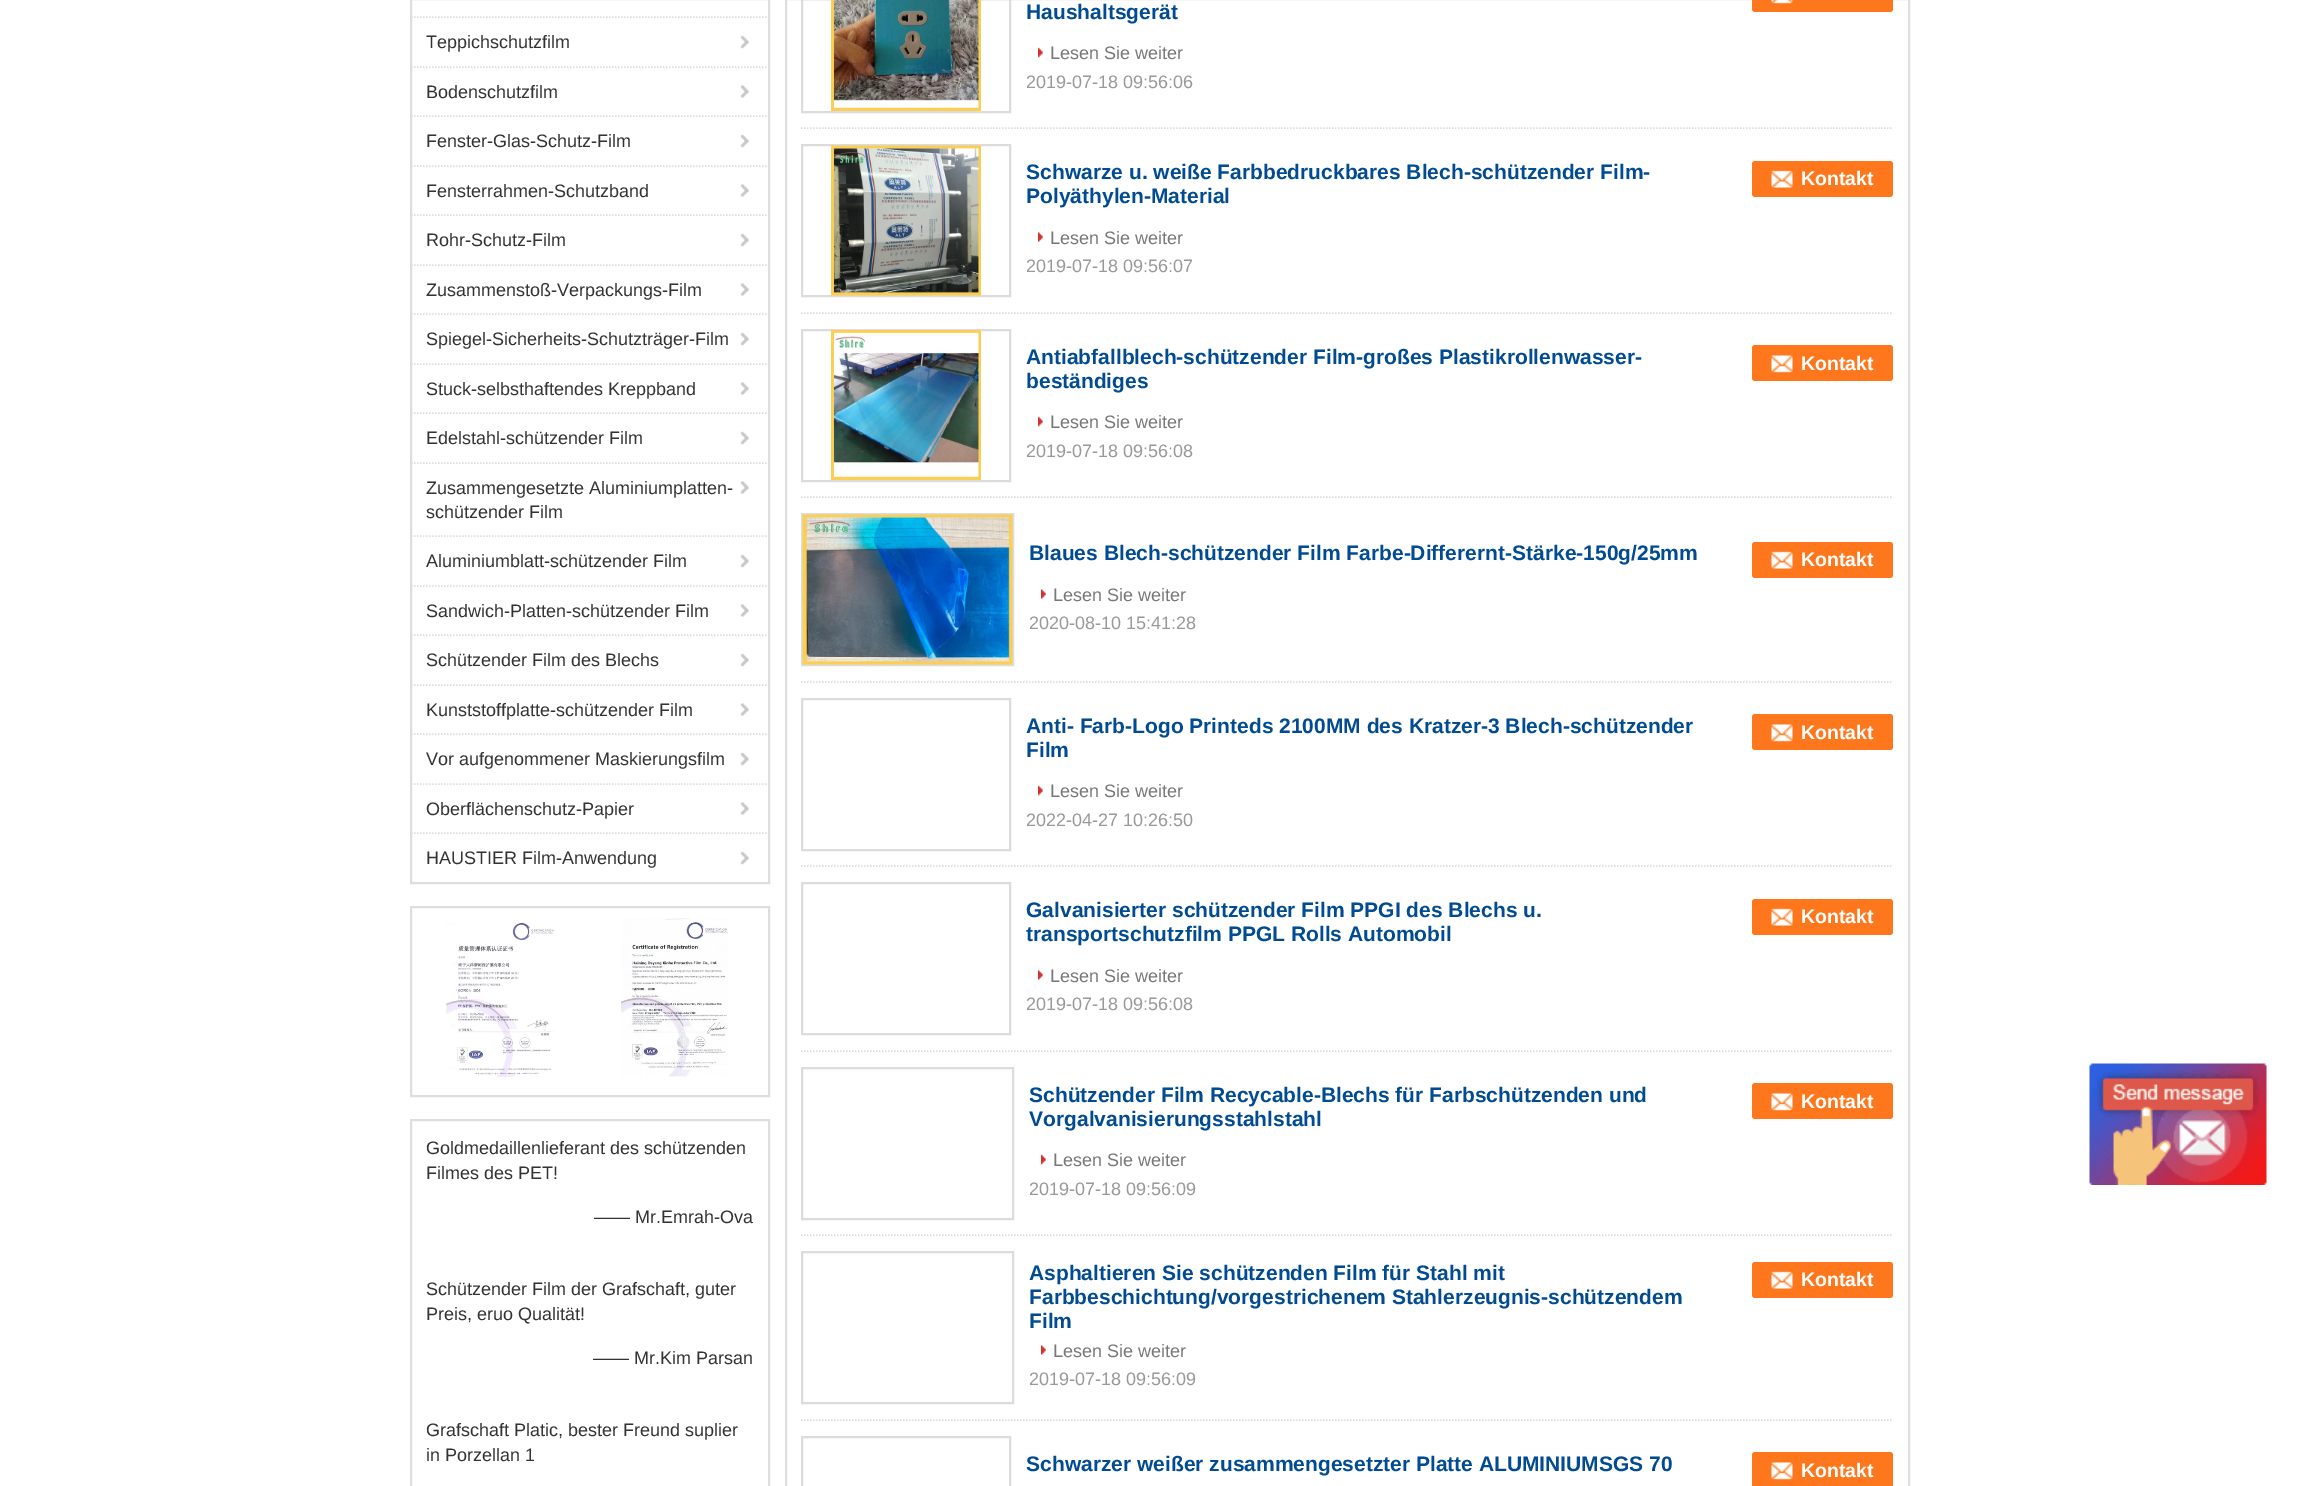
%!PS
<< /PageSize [2319 1486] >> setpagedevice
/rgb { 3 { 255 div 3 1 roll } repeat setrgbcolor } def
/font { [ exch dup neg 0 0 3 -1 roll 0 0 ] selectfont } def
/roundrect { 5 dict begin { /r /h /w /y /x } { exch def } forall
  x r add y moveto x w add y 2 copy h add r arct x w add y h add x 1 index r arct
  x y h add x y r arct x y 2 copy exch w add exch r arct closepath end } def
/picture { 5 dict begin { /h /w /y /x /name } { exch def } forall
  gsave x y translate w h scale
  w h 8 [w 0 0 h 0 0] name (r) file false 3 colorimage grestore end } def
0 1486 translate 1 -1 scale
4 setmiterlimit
255 255 255 rgb
0 0 2319 1486 rectfill
222 222 222 rgb
2 setlinewidth
411 -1 358 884 rectstroke
1.5 setlinewidth
[1.5 1.5] 0 setdash
411 17 moveto 768 17 lineto stroke
(img/1.rgb) 740 35 9 14 picture
411 67 moveto 768 67 lineto stroke
(img/2.rgb) 740 85 9 13 picture
411 116 moveto 768 116 lineto stroke
(img/1.rgb) 740 134 9 14 picture
411 166 moveto 768 166 lineto stroke
(img/2.rgb) 740 184 9 13 picture
411 215 moveto 768 215 lineto stroke
(img/1.rgb) 740 233 9 14 picture
411 265 moveto 768 265 lineto stroke
(img/2.rgb) 740 283 9 13 picture
411 314 moveto 768 314 lineto stroke
(img/1.rgb) 740 332 9 14 picture
411 364 moveto 768 364 lineto stroke
(img/2.rgb) 740 382 9 13 picture
411 413 moveto 768 413 lineto stroke
(img/1.rgb) 740 431 9 14 picture
411 463 moveto 768 463 lineto stroke
(img/2.rgb) 740 481 9 13 picture
411 536 moveto 768 536 lineto stroke
(img/1.rgb) 740 554 9 14 picture
411 586 moveto 768 586 lineto stroke
(img/2.rgb) 740 604 9 13 picture
411 635 moveto 768 635 lineto stroke
(img/1.rgb) 740 653 9 14 picture
411 685 moveto 768 685 lineto stroke
(img/2.rgb) 740 703 9 13 picture
411 734 moveto 768 734 lineto stroke
(img/1.rgb) 740 752 9 14 picture
411 784 moveto 768 784 lineto stroke
(img/2.rgb) 740 802 9 13 picture
411 833 moveto 768 833 lineto stroke
(img/1.rgb) 740 851 9 14 picture
2 setlinewidth
[] 0 setdash
411 907 358 189 rectstroke
(img/3.rgb) 446 922 108 155 picture
(img/4.rgb) 621 918 107 159 picture
411 1120 358 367 rectstroke
786 -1 1123 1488 rectstroke
220 220 220 rgb
1.5 setlinewidth
[1.5 1.5] 0 setdash
801 128 moveto 1893 128 lineto stroke
2 setlinewidth
[] 0 setdash
802 -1 208 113 rectstroke
(img/5.rgb) 831 0 150 111 picture
255 119 28 rgb
1752 -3 141 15 3 roundrect fill
(img/6.rgb) 1771 0 22 4 picture
(img/7.rgb) 1038 47 5 11 picture
220 220 220 rgb
1.5 setlinewidth
[1.5 1.5] 0 setdash
801 313 moveto 1893 313 lineto stroke
2 setlinewidth
[] 0 setdash
802 145 208 151 rectstroke
(img/8.rgb) 831 145 150 151 picture
255 119 28 rgb
1752 161 141 36 3 roundrect fill
(img/9.rgb) 1771 170 22 18 picture
(img/10.rgb) 1038 232 5 10 picture
220 220 220 rgb
1.5 setlinewidth
[1.5 1.5] 0 setdash
801 497 moveto 1893 497 lineto stroke
2 setlinewidth
[] 0 setdash
802 330 208 151 rectstroke
(img/11.rgb) 831 330 150 150 picture
255 119 28 rgb
1752 345 141 36 3 roundrect fill
(img/12.rgb) 1771 355 22 18 picture
(img/7.rgb) 1038 416 5 11 picture
220 220 220 rgb
1.5 setlinewidth
[1.5 1.5] 0 setdash
801 682 moveto 1893 682 lineto stroke
2 setlinewidth
[] 0 setdash
802 514 211 151 rectstroke
(img/13.rgb) 802 514 211 151 picture
255 119 28 rgb
1752 542 141 36 3 roundrect fill
(img/9.rgb) 1771 551 22 18 picture
(img/10.rgb) 1041 589 5 10 picture
220 220 220 rgb
1.5 setlinewidth
[1.5 1.5] 0 setdash
801 866 moveto 1893 866 lineto stroke
2 setlinewidth
[] 0 setdash
802 699 208 151 rectstroke
255 119 28 rgb
1752 714 141 36 3 roundrect fill
(img/12.rgb) 1771 724 22 18 picture
(img/7.rgb) 1038 785 5 11 picture
220 220 220 rgb
1.5 setlinewidth
[1.5 1.5] 0 setdash
801 1051 moveto 1893 1051 lineto stroke
2 setlinewidth
[] 0 setdash
802 883 208 151 rectstroke
255 119 28 rgb
1752 899 141 36 3 roundrect fill
(img/9.rgb) 1771 908 22 18 picture
(img/10.rgb) 1038 970 5 10 picture
220 220 220 rgb
1.5 setlinewidth
[1.5 1.5] 0 setdash
801 1235 moveto 1893 1235 lineto stroke
2 setlinewidth
[] 0 setdash
802 1068 211 151 rectstroke
255 119 28 rgb
1752 1083 141 36 3 roundrect fill
(img/12.rgb) 1771 1093 22 18 picture
(img/7.rgb) 1041 1154 5 11 picture
220 220 220 rgb
1.5 setlinewidth
[1.5 1.5] 0 setdash
801 1420 moveto 1893 1420 lineto stroke
2 setlinewidth
[] 0 setdash
802 1252 211 151 rectstroke
255 119 28 rgb
1752 1262 141 36 3 roundrect fill
(img/9.rgb) 1771 1271 22 18 picture
(img/10.rgb) 1041 1345 5 10 picture
220 220 220 rgb
802 1437 208 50 rectstroke
255 119 28 rgb
1752 1452 141 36 3 roundrect fill
(img/12.rgb) 1771 1462 22 18 picture
(img/14.rgb) 2089 1063 178 122 picture
/LiberationSans-Regular 18 font
51 51 51 rgb
[
  [(Teppichschutzfilm) 426 48]
  [(Bodenschutzfilm) 426 98]
  [(Fenster-Glas-Schutz-Film) 426 147]
  [(Fensterrahmen-Schutzband) 426 197]
  [(Rohr-Schutz-Film) 426 246]
  [(Zusammenstoß-Verpackungs-Film) 426 296]
  [(Spiegel-Sicherheits-Schutzträger-Film) 426 345]
  [(Stuck-selbsthaftendes Kreppband) 426 395]
  [(Edelstahl-schützender Film) 426 444]
  [(Zusammengesetzte Aluminiumplatten-) 426 494]
  [(schützender Film) 426 518]
  [(Aluminiumblatt-schützender Film) 426 567]
  [(Sandwich-Platten-schützender Film) 426 617]
  [(Schützender Film des Blechs) 426 666]
  [(Kunststoffplatte-schützender Film) 426 716]
  [(Vor aufgenommener Maskierungsfilm) 426 765]
  [(Oberflächenschutz-Papier) 426 815]
  [(HAUSTIER Film-Anwendung) 426 864]
  [(Goldmedaillenlieferant des schützenden) 426 1154]
  [(Filmes des PET!) 426 1179]
  [(—— Mr.Emrah-Ova) 594 1223]
  [(Schützender Film der Grafschaft, guter) 426 1295]
  [(Preis, eruo Qualität!) 426 1320]
  [(—— Mr.Kim Parsan) 593 1364]
  [(Grafschaft Platic, bester Freund suplier) 426 1436]
  [(in Porzellan 1) 426 1461]
] { aload pop moveto show } forall
/LiberationSans-Bold 21 font
0 75 145 rgb
1026 19 moveto (Haushaltsgerät) show
/LiberationSans-Regular 18 font
120 120 120 rgb
1050 59 moveto (Lesen Sie weiter) show
153 153 153 rgb
1026 88 moveto (2019-07-18 09:56:06) show
/LiberationSans-Bold 21 font
0 75 145 rgb
1026 179 moveto (Schwarze u. weiße Farbbedruckbares Blech-schützender Film-) show
/LiberationSans-Bold 19.5 font
255 255 255 rgb
1801 185 moveto (Kontakt) show
/LiberationSans-Bold 21 font
0 75 145 rgb
1026 203 moveto (Polyäthylen-Material) show
/LiberationSans-Regular 18 font
120 120 120 rgb
1050 244 moveto (Lesen Sie weiter) show
153 153 153 rgb
1026 272 moveto (2019-07-18 09:56:07) show
/LiberationSans-Bold 21 font
0 75 145 rgb
1026 364 moveto (Antiabfallblech-schützender Film-großes Plastikrollenwasser-) show
/LiberationSans-Bold 19.5 font
255 255 255 rgb
1801 370 moveto (Kontakt) show
/LiberationSans-Bold 21 font
0 75 145 rgb
1026 388 moveto (beständiges) show
/LiberationSans-Regular 18 font
120 120 120 rgb
1050 428 moveto (Lesen Sie weiter) show
153 153 153 rgb
1026 457 moveto (2019-07-18 09:56:08) show
/LiberationSans-Bold 21 font
0 75 145 rgb
1029 560 moveto (Blaues Blech-schützender Film Farbe-Differernt-Stärke-150g/25mm) show
/LiberationSans-Bold 19.5 font
255 255 255 rgb
1801 566 moveto (Kontakt) show
/LiberationSans-Regular 18 font
120 120 120 rgb
1053 601 moveto (Lesen Sie weiter) show
153 153 153 rgb
1029 629 moveto (2020-08-10 15:41:28) show
/LiberationSans-Bold 21 font
0 75 145 rgb
1026 733 moveto (Anti- Farb-Logo Printeds 2100MM des Kratzer-3 Blech-schützender) show
/LiberationSans-Bold 19.5 font
255 255 255 rgb
1801 739 moveto (Kontakt) show
/LiberationSans-Bold 21 font
0 75 145 rgb
1026 757 moveto (Film) show
/LiberationSans-Regular 18 font
120 120 120 rgb
1050 797 moveto (Lesen Sie weiter) show
153 153 153 rgb
1026 826 moveto (2022-04-27 10:26:50) show
/LiberationSans-Bold 21 font
0 75 145 rgb
1026 917 moveto (Galvanisierter schützender Film PPGI des Blechs u.) show
/LiberationSans-Bold 19.5 font
255 255 255 rgb
1801 923 moveto (Kontakt) show
/LiberationSans-Bold 21 font
0 75 145 rgb
1026 941 moveto (transportschutzfilm PPGL Rolls Automobil) show
/LiberationSans-Regular 18 font
120 120 120 rgb
1050 982 moveto (Lesen Sie weiter) show
153 153 153 rgb
1026 1010 moveto (2019-07-18 09:56:08) show
/LiberationSans-Bold 21 font
0 75 145 rgb
1029 1102 moveto (Schützender Film Recycable-Blechs für Farbschützenden und) show
/LiberationSans-Bold 19.5 font
255 255 255 rgb
1801 1108 moveto (Kontakt) show
/LiberationSans-Bold 21 font
0 75 145 rgb
1029 1126 moveto (Vorgalvanisierungsstahlstahl) show
/LiberationSans-Regular 18 font
120 120 120 rgb
1053 1166 moveto (Lesen Sie weiter) show
153 153 153 rgb
1029 1195 moveto (2019-07-18 09:56:09) show
/LiberationSans-Bold 21 font
0 75 145 rgb
1029 1280 moveto (Asphaltieren Sie schützenden Film für Stahl mit) show
/LiberationSans-Bold 19.5 font
255 255 255 rgb
1801 1286 moveto (Kontakt) show
/LiberationSans-Bold 21 font
0 75 145 rgb
1029 1304 moveto (Farbbeschichtung/vorgestrichenem Stahlerzeugnis-schützendem) show
1029 1328 moveto (Film) show
/LiberationSans-Regular 18 font
120 120 120 rgb
1053 1357 moveto (Lesen Sie weiter) show
153 153 153 rgb
1029 1385 moveto (2019-07-18 09:56:09) show
/LiberationSans-Bold 21 font
0 75 145 rgb
1026 1471 moveto (Schwarzer weißer zusammengesetzter Platte ALUMINIUMSGS 70) show
/LiberationSans-Bold 19.5 font
255 255 255 rgb
1801 1477 moveto (Kontakt) show
showpage
